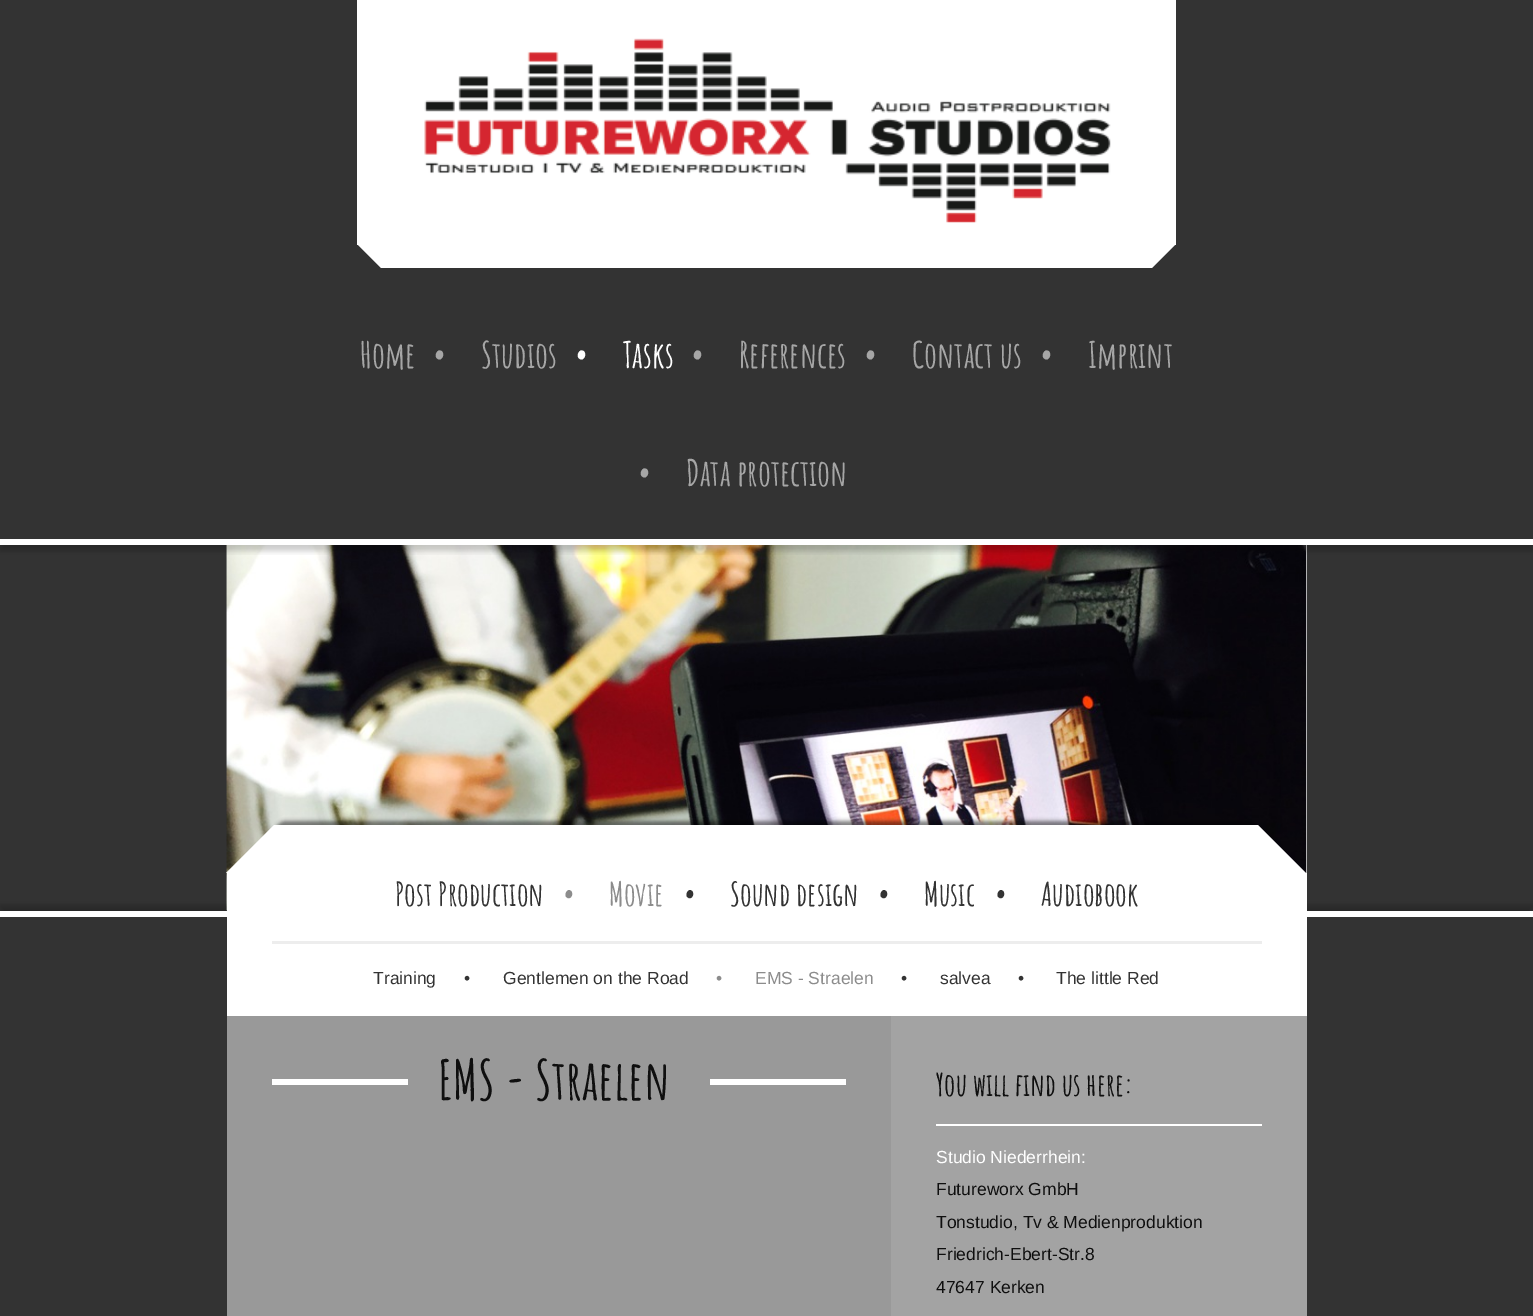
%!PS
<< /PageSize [1533 1316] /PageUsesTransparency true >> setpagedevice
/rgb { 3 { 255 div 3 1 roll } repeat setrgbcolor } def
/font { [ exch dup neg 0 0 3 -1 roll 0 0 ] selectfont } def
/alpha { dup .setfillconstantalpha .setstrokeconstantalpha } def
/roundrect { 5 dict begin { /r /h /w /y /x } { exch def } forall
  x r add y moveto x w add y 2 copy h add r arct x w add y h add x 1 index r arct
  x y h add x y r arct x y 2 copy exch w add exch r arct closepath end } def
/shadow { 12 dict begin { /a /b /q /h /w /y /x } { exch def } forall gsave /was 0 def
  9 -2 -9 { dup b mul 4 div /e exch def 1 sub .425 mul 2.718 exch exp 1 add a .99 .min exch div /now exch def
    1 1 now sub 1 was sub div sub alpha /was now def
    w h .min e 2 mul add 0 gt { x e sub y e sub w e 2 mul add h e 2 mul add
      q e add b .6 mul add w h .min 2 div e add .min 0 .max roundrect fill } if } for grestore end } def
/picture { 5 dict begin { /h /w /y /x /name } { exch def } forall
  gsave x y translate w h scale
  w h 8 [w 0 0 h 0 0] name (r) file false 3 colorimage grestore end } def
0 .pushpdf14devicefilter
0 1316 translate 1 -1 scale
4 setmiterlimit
51 51 51 rgb
0 0 1533 1316 rectfill
255 255 255 rgb
357 244 moveto 1176 244 lineto 1152 268 lineto 381 268 lineto closepath fill
357 0 819 245 rectfill
(img/1.rgb) 424 38 687 185 picture
(img/2.rgb) 226 545 1 366 picture
238 238 238 rgb
1306 545 1 328 rectfill
(img/3.rgb) 226 545 1081 366 picture
gsave
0 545 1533 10 rectclip
0 0 0 rgb
0 293 1533 258 0 3 0.2 shadow
grestore
255 255 255 rgb
0 539 1533 6 rectfill
gsave
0 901 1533 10 rectclip
0 0 0 rgb
0 905 1533 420 0 3 0.2 shadow
grestore
0 911 1533 6 rectfill
153 153 153 rgb
227 1016 664 300 rectfill
0 0 0 rgb
275 821 984 24 12 2 0.5 shadow
255 255 255 rgb
1306 873 moveto 226 873 lineto 274 825 lineto 1258 825 lineto closepath fill
[
  [227 873 1080 143 255 255 255]
  [272 941 990 3 237 237 237]
  [272 1079 574 6 255 255 255]
  [408 1079 302 6 153 153 153]
  [891 1016 416 300 163 163 163]
  [936 1124 326 2 255 255 255]
] { aload pop rgb rectfill } forall
/AmaticSC-Bold 36 font
166 166 166 rgb
[
  [(Home) 360 368]
  [(•) 433 368]
  [(Studios) 481 368]
] { aload pop moveto show } forall
255 255 255 rgb
575 368 moveto (•) show
623 368 moveto (Tasks) show
166 166 166 rgb
[
  [(•) 691 368]
  [(References) 739 368]
  [(•) 864 368]
  [(Contact us) 912 368]
  [(•) 1040 368]
  [(Imprint) 1088 368]
  [(•) 638 486]
  [(Data protection) 686 486]
] { aload pop moveto show } forall
/AmaticSC-Bold 32.5 font
51 51 51 rgb
395 906 moveto (Post Production) show
140 140 140 rgb
563 906 moveto (•) show
609 906 moveto (Movie) show
51 51 51 rgb
[
  [(•) 684 906]
  [(Sound design) 730 906]
  [(•) 878 906]
  [(Music) 924 906]
  [(•) 995 906]
  [(Audiobook) 1041 906]
] { aload pop moveto show } forall
/LiberationSans-Regular 17.5 font
[
  [(Training) 373 984]
  [(•) 464 984]
  [(Gentlemen on the Road) 503 984]
] { aload pop moveto show } forall
140 140 140 rgb
716 984 moveto (•) show
755 984 moveto (EMS - Straelen) show
51 51 51 rgb
[
  [(•) 901 984]
  [(salvea) 940 984]
  [(•) 1018 984]
  [(The little Red) 1056 984]
] { aload pop moveto show } forall
/AmaticSC-Bold 54.5 font
15 15 15 rgb
438 1100 moveto (EMS - Straelen) show
/AmaticSC-Bold 31.25 font
936 1096 moveto (You will find us here:) show
/LiberationSans-Regular 17.5 font
255 255 255 rgb
936 1163 moveto (Studio Niederrhein:) show
15 15 15 rgb
[
  [(Futureworx GmbH) 936 1195]
  [(Tonstudio, Tv & Medienproduktion) 936 1228]
  [(Friedrich-Ebert-Str.8) 936 1260]
  [(47647 Kerken) 936 1293]
] { aload pop moveto show } forall
.poppdf14devicefilter showpage
